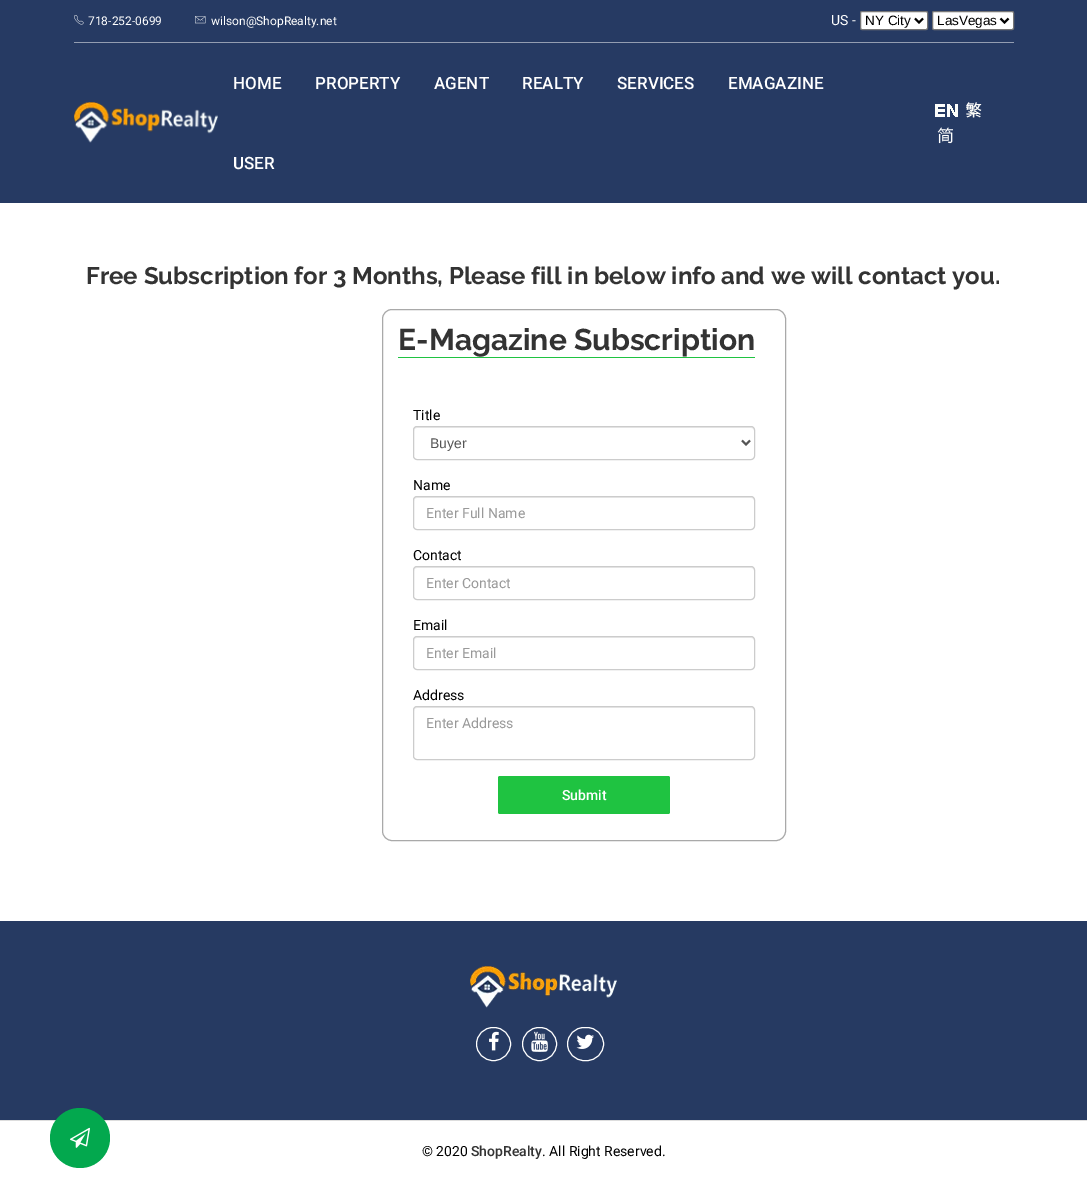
%!PS
<< /PageSize [1087 1188] >> setpagedevice
/rgb { 3 { 255 div 3 1 roll } repeat setrgbcolor } def
/font { [ exch dup neg 0 0 3 -1 roll 0 0 ] selectfont } def
/circle { newpath 0 360 arc closepath } def
/roundrect { 5 dict begin { /r /h /w /y /x } { exch def } forall
  x r add y moveto x w add y 2 copy h add r arct x w add y h add x 1 index r arct
  x y h add x y r arct x y 2 copy exch w add exch r arct closepath end } def
/picture { 5 dict begin { /h /w /y /x /name } { exch def } forall
  gsave x y translate w h scale
  w h 8 [w 0 0 h 0 0] name (r) file false 3 colorimage grestore end } def
0 1188 translate 1 -1 scale
4 setmiterlimit
255 255 255 rgb
0 0 1087 1188 rectfill
38 58 99 rgb
0 0 1087 203 rectfill
147 157 177 rgb
74 42 940 1 rectfill
(img/1.rgb) 74 15 10 10 picture
(img/2.rgb) 195 16 11 8 picture
255 255 255 rgb
860.5 11.5 67 18 1.5 roundrect gsave fill grestore
118 118 118 rgb
stroke
0 0 0 rgb
2 setlinewidth
915 18.5 moveto 919 22.5 lineto 923 18.5 lineto stroke
255 255 255 rgb
932.5 11.5 81 18 1.5 roundrect gsave fill grestore
118 118 118 rgb
1 setlinewidth
stroke
0 0 0 rgb
2 setlinewidth
1000.5 18.5 moveto 1004.5 22.5 lineto 1008.5 18.5 lineto stroke
(img/3.rgb) 74 102 144 41 picture
(img/4.rgb) 935 104 23 13 picture
(img/5.rgb) 966 102 16 16 picture
(img/6.rgb) 937 127 16 17 picture
169 169 169 rgb
1 setlinewidth
382.5 309.5 403 531 9.5 roundrect stroke
31 195 65 rgb
398 357 357 1 rectfill
236 236 236 rgb
417 428 moveto 751 428 lineto 753 428 754 429 754 431 curveto 754 429 753 427 751 427 curveto 417 427 lineto 415 427 414 429 414 431 curveto 414 429 415 428 417 428 curveto closepath fill
204 204 204 rgb
413.5 426.5 341 33 3.5 roundrect stroke
85 85 85 rgb
2 setlinewidth
742 440.5 moveto 746 444.5 lineto 750 440.5 lineto stroke
236 236 236 rgb
417 498 moveto 751 498 lineto 753 498 754 499 754 501 curveto 754 499 753 497 751 497 curveto 417 497 lineto 415 497 414 499 414 501 curveto 414 499 415 498 417 498 curveto closepath fill
204 204 204 rgb
1 setlinewidth
413.5 496.5 341 33 3.5 roundrect stroke
236 236 236 rgb
417 568 moveto 751 568 lineto 753 568 754 569 754 571 curveto 754 569 753 567 751 567 curveto 417 567 lineto 415 567 414 569 414 571 curveto 414 569 415 568 417 568 curveto closepath fill
204 204 204 rgb
413.5 566.5 341 33 3.5 roundrect stroke
236 236 236 rgb
417 638 moveto 751 638 lineto 753 638 754 639 754 641 curveto 754 639 753 637 751 637 curveto 417 637 lineto 415 637 414 639 414 641 curveto 414 639 415 638 417 638 curveto closepath fill
204 204 204 rgb
413.5 636.5 341 33 3.5 roundrect stroke
236 236 236 rgb
417 708 moveto 751 708 lineto 753 708 754 709 754 711 curveto 754 709 753 707 751 707 curveto 417 707 lineto 415 707 414 709 414 711 curveto 414 709 415 708 417 708 curveto closepath fill
204 204 204 rgb
413.5 706.5 341 53 3.5 roundrect stroke
31 195 65 rgb
498 776 172 38 2 roundrect fill
38 58 98 rgb
0 921 1087 199 rectfill
221 221 221 rgb
0 1120 1087 1 rectfill
(img/7.rgb) 470 966 147 42 picture
255 255 255 rgb
476.5 1027.5 34 33 16.5 roundrect stroke
(img/8.rgb) 489 1031 10 20 picture
522.5 1027.5 34 33 16.5 roundrect stroke
(img/9.rgb) 531 1031 17 21 picture
567.5 1027.5 36 33 16.5 roundrect stroke
(img/10.rgb) 576 1034 18 15 picture
3 168 78 rgb
80 1138 30 circle fill
(img/11.rgb) 70 1127 20 21 picture
/Roboto-Regular 12 font
255 255 255 rgb
88 25 moveto (718-252-0699) show
211 25 moveto (wilson@ShopRealty.net) show
/Roboto-Regular 14 font
831 25 moveto (US -) show
/LiberationSans-Regular 13.5 font
0 0 0 rgb
865 25 moveto (NY City) show
937 25 moveto (LasVegas) show
/Roboto-Medium 17 font
255 255 255 rgb
[
  [(HOME) 233 89]
  [(PROPERTY) 315 89]
  [(AGENT) 434 89]
  [(REALTY) 522 89]
  [(SERVICES) 617 89]
  [(EMAGAZINE) 728 89]
  [(USER) 233 169]
] { aload pop moveto show } forall
/Raleway-Thin 24 font
51 51 51 rgb
86 284 moveto (Free Subscription for 3 Months, Please fill in below info and we will contact you.) show
/Raleway-Thin 30 font
398 350 moveto (E-Magazine Subscription) show
/Roboto-Regular 14 font
0 0 0 rgb
413 420 moveto (Title) show
/LiberationSans-Regular 14 font
85 85 85 rgb
430 448 moveto (Buyer) show
/Roboto-Regular 14 font
0 0 0 rgb
413 490 moveto (Name) show
153 153 153 rgb
426 518 moveto (Enter Full Name) show
0 0 0 rgb
413 560 moveto (Contact) show
153 153 153 rgb
426 588 moveto (Enter Contact) show
0 0 0 rgb
413 630 moveto (Email) show
153 153 153 rgb
426 658 moveto (Enter Email) show
0 0 0 rgb
413 700 moveto (Address) show
153 153 153 rgb
426 728 moveto (Enter Address) show
/Roboto-Medium 14 font
255 255 255 rgb
562 800 moveto (Submit) show
/Roboto-Regular 14 font
0 0 0 rgb
422 1156 moveto (© 2020) show
/Roboto-Medium 14 font
51 51 51 rgb
471 1156 moveto (ShopRealty) show
/Roboto-Regular 14 font
0 0 0 rgb
542 1156 moveto (. All Right Reserved.) show
showpage
